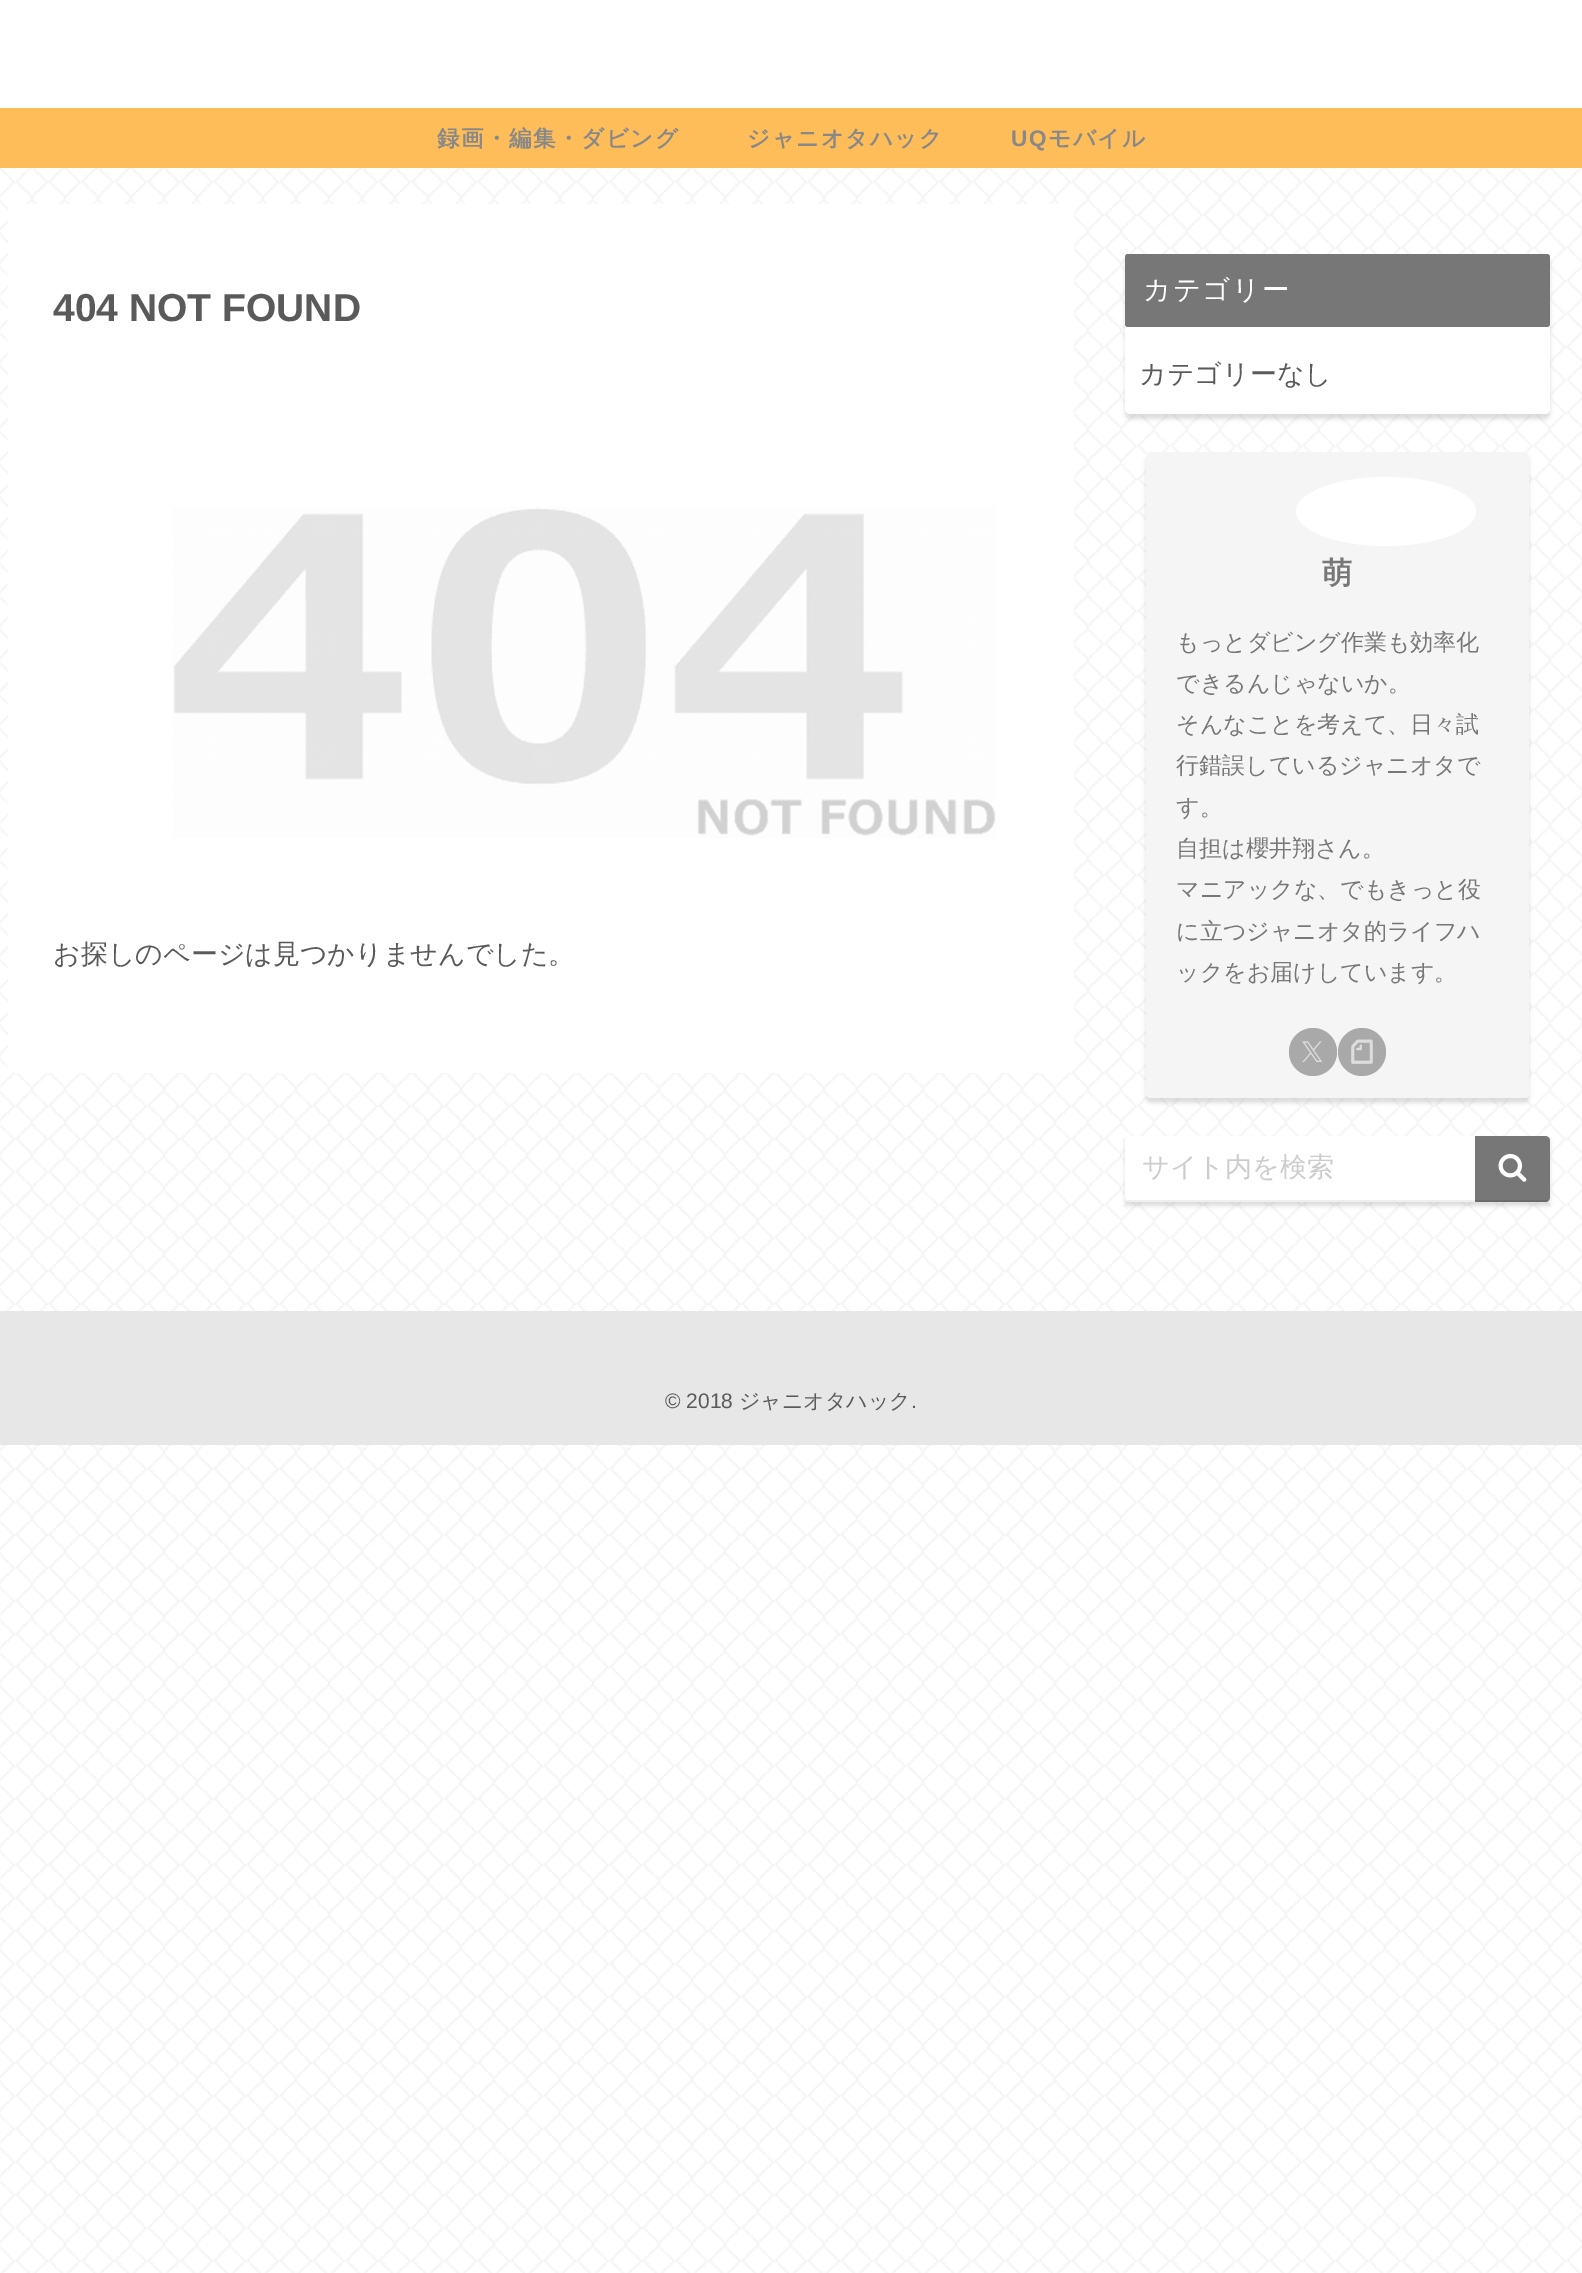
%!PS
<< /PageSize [1582 2273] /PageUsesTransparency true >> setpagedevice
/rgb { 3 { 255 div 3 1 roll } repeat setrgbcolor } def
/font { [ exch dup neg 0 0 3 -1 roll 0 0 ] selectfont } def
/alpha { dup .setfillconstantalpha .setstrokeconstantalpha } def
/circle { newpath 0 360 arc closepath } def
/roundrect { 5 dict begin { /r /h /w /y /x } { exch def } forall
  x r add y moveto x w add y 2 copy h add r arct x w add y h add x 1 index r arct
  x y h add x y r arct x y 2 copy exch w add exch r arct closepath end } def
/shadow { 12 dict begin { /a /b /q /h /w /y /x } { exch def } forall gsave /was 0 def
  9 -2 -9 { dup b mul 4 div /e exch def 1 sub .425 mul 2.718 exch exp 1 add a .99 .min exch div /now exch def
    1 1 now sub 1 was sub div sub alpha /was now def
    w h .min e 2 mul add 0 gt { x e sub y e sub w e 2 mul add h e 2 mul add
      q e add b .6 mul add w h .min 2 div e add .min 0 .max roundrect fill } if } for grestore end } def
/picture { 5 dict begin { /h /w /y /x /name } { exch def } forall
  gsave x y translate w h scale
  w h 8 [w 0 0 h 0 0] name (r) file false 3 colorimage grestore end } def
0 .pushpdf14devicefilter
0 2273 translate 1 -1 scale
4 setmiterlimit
255 255 255 rgb
0 0 1582 2273 rectfill
(img/1.rgb) 0 168 1582 2105 picture
255 189 89 rgb
0 108 1582 60 rectfill
255 255 255 rgb
8 204 1066 869 6 roundrect fill
(img/2.rgb) 173 507 823 331 picture
0 0 0 rgb
1125 258 425 161 5 2 0.12 shadow
255 255 255 rgb
1125 254 425 160 5 roundrect fill
119 119 119 rgb
1125 254 425 73 3 roundrect fill
0 0 0 rgb
1146 456 383 647 5 2 0.12 shadow
255 255 255 rgb
1146 452 383 646 5 roundrect fill
245 245 245 rgb
1146 452 383 646 6 roundrect fill
255 255 255 rgb
1386 477 moveto 1435.5 477 1476 492.5 1476 511.5 curveto 1476 530.5 1435.5 546 1386 546 curveto 1336.5 546 1296 530.5 1296 511.5 curveto 1296 492.5 1336.5 477 1386 477 curveto closepath fill
169 169 169 rgb
1313 1052 24 circle fill
(img/3.rgb) 1302 1041 21 21 picture
1362 1052 24 circle fill
(img/4.rgb) 1351 1039 22 25 picture
0 0 0 rgb
1125 1140 425 66 0 2 0.12 shadow
255 255 255 rgb
1125 1136 425 66 6 roundrect fill
239 239 239 rgb
1128 1200 419 2 rectfill
119 119 119 rgb
1475 1136 moveto 1545 1136 lineto 1548 1136 1550 1138 1550 1141 curveto 1550 1197 lineto 1550 1200 1548 1202 1545 1202 curveto 1475 1202 lineto closepath fill
0.1 alpha
0 0 0 rgb
1475 1200 73 2 rectfill
1 alpha
(img/5.rgb) 1498 1153 29 29 picture
231 231 231 rgb
0 1311 1582 134 rectfill
/WenQuanYiZenHei-Bold 22.5 font
136 136 136 rgb
437 146 moveto 1.5 0 (録画・編集・ダビング) ashow
747 146 moveto 1.5 0 (ジャニオタハック) ashow
/LiberationSans-Bold 22.5 font
1011 146 moveto 1.5 0 (UQ) ashow
/WenQuanYiZenHei-Bold 22.5 font
1048 146 moveto 1.5 0 (モバイル) ashow
/LiberationSans-Bold 39 font
90 90 90 rgb
53 321 moveto (404 NOT FOUND) show
/WenQuanYiZenHei-Medium 27 font
53 963 moveto (お探しのページは見つかりませんでした。) show
/WenQuanYiZenHei-Medium 27.5 font
255 255 255 rgb
1143 299 moveto 1.5 0 (カテゴリー) ashow
/WenQuanYiZenHei-Medium 27 font
90 90 90 rgb
1139 383 moveto (カテゴリーなし) show
/WenQuanYiZenHei-Bold 30 font
119 119 119 rgb
1322 583 moveto (萌) show
/WenQuanYiZenHei-Medium 23 font
[
  [(もっとダビング作業も効率化) 1176 650]
  [(できるんじゃないか。) 1176 691]
  [(そんなことを考えて、日々試) 1176 732]
  [(行錯誤しているジャニオタで) 1176 773]
  [(す。) 1176 815]
  [(自担は櫻井翔さん。) 1176 856]
  [(マニアックな、でもきっと役) 1176 897]
  [(に立つジャニオタ的ライフハ) 1176 939]
  [(ックをお届けしています。) 1176 980]
] { aload pop moveto show } forall
/WenQuanYiZenHei-Medium 27 font
204 204 204 rgb
1142 1176 moveto (サイト内を検索) show
/LiberationSans-Regular 21 font
90 90 90 rgb
665 1408 moveto (© 2018) show
/WenQuanYiZenHei-Medium 21 font
739 1408 moveto (ジャニオタハック) show
/LiberationSans-Regular 21 font
911 1408 moveto (.) show
.poppdf14devicefilter showpage
